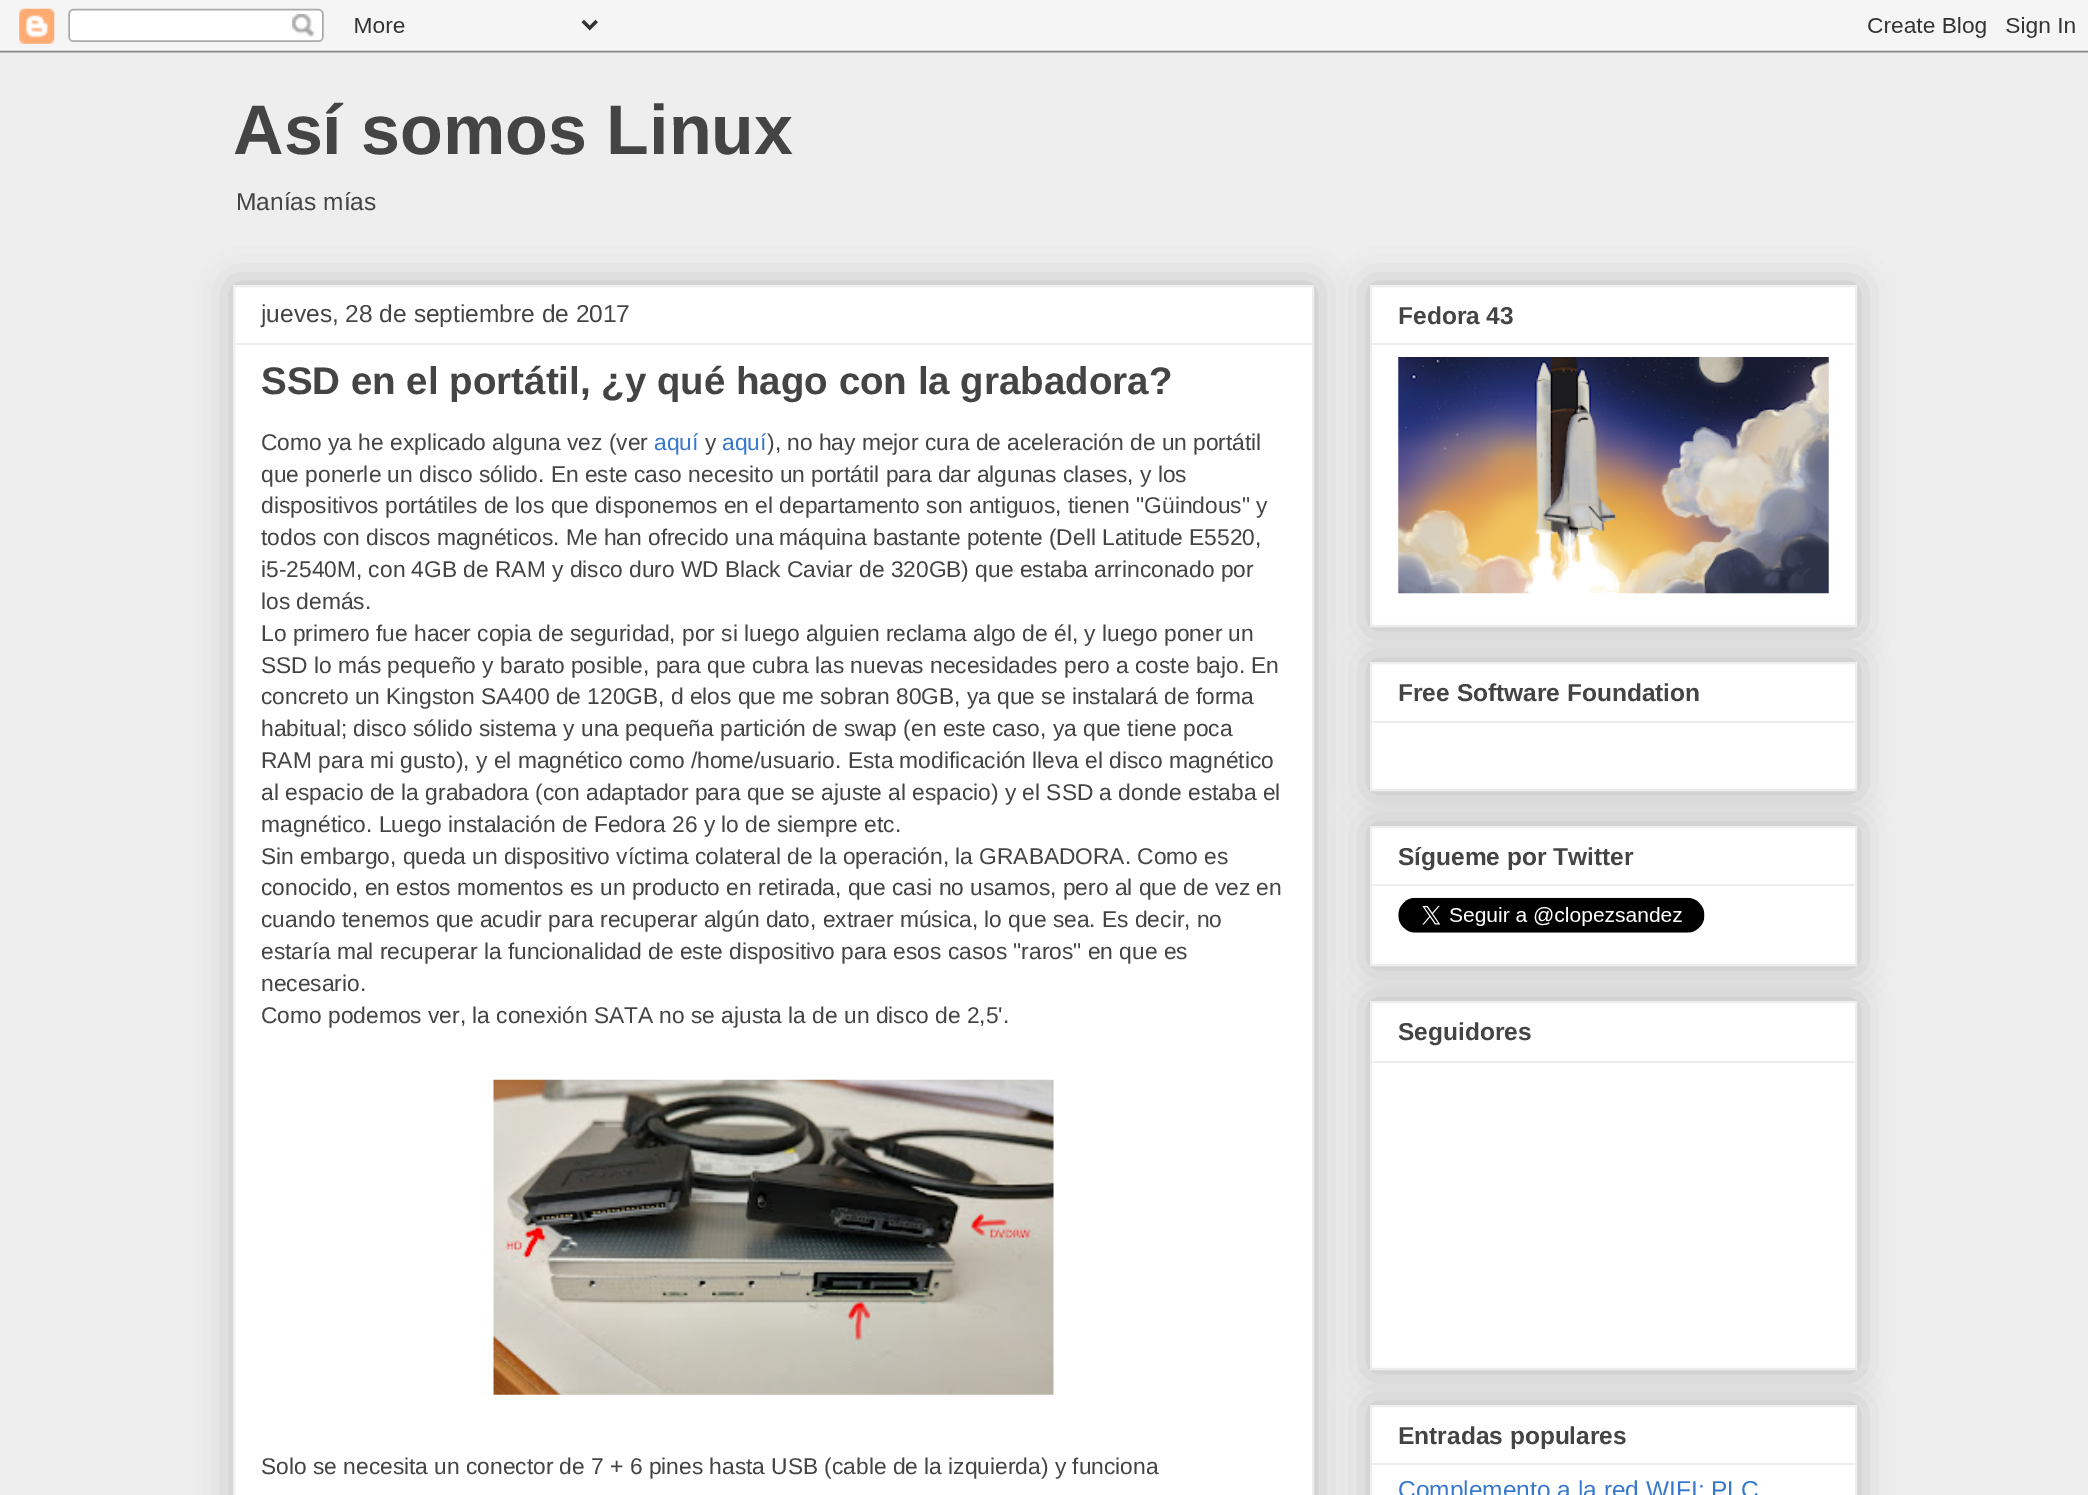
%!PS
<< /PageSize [2088 1495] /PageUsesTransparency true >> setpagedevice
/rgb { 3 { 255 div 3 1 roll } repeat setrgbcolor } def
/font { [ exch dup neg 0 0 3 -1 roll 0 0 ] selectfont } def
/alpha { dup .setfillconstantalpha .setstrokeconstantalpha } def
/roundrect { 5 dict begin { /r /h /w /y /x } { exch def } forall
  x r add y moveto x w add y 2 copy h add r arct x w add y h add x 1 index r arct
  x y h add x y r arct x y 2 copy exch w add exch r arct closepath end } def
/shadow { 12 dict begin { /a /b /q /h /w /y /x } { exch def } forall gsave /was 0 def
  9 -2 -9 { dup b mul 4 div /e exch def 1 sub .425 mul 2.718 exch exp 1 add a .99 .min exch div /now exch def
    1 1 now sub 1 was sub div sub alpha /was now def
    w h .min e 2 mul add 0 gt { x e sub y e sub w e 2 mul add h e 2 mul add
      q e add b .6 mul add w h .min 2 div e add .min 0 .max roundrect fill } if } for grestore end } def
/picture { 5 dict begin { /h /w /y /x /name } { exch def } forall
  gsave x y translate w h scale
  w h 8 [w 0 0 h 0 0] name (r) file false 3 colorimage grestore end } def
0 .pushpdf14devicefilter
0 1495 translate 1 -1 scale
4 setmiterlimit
238 238 238 rgb
0 0 2088 1495 rectfill
(img/1.rgb) 0 0 2088 53 picture
0 0 0 rgb
233 285 1081 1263 0 17.5 0.2 shadow
255 255 255 rgb
234 286 moveto 1313 286 lineto 1313 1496 lineto 234 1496 lineto closepath gsave fill grestore
238 238 238 rgb
2 setlinewidth
stroke
235 343 1078 2 rectfill
(img/2.rgb) 493 1079 561 316 picture
0 0 0 rgb
1370 285 487 342 0 17.5 0.2 shadow
255 255 255 rgb
1371 286 moveto 1856 286 lineto 1856 626 lineto 1371 626 lineto closepath gsave fill grestore
238 238 238 rgb
stroke
1372 343 483 2 rectfill
(img/3.rgb) 1398 357 431 237 picture
0 0 0 rgb
1370 662 487 129 0 17.5 0.2 shadow
255 255 255 rgb
1371 663 moveto 1856 663 lineto 1856 790 lineto 1371 790 lineto closepath gsave fill grestore
238 238 238 rgb
stroke
1372 721 483 2 rectfill
0 0 0 rgb
1370 826 487 140 0 17.5 0.2 shadow
255 255 255 rgb
1371 827 moveto 1856 827 lineto 1856 965 lineto 1371 965 lineto closepath gsave fill grestore
238 238 238 rgb
stroke
1372 884 483 2 rectfill
(img/4.rgb) 1398 897 307 36 picture
0 0 0 rgb
1370 1001 487 369 0 17.5 0.2 shadow
255 255 255 rgb
1371 1002 moveto 1856 1002 lineto 1856 1369 lineto 1371 1369 lineto closepath gsave fill grestore
238 238 238 rgb
stroke
1372 1061 483 2 rectfill
0 0 0 rgb
1370 1405 487 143 0 17.5 0.2 shadow
255 255 255 rgb
1371 1406 moveto 1856 1406 lineto 1856 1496 lineto 1371 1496 lineto closepath gsave fill grestore
238 238 238 rgb
stroke
1372 1463 483 2 rectfill
/LiberationSans-Bold 70 font
68 68 68 rgb
233 154 moveto (Así somos Linux) show
/LiberationSans-Regular 24.5 font
236 210 moveto (Manías mías) show
261 322 moveto (jueves, 28 de septiembre de 2017) show
/LiberationSans-Bold 38.5 font
261 394 moveto (SSD en el portátil, ¿y qué hago con la grabadora?) show
/LiberationSans-Regular 22.75 font
261 450 moveto (Como ya he explicado alguna vez \(ver) show
55 120 205 rgb
654 450 moveto (aquí) show
68 68 68 rgb
705 450 moveto (y) show
55 120 205 rgb
722 450 moveto (aquí) show
68 68 68 rgb
[
  [(\), no hay mejor cura de aceleración de un portátil) 767 450]
  [(que ponerle un disco sólido. En este caso necesito un portátil para dar algunas clases, y los) 261 482]
  [(dispositivos portátiles de los que disponemos en el departamento son antiguos, tienen "Güindous" y) 261 513]
  [(todos con discos magnéticos. Me han ofrecido una máquina bastante potente \(Dell Latitude E5520,) 261 545]
  [(i5-2540M, con 4GB de RAM y disco duro WD Black Caviar de 320GB\) que estaba arrinconado por) 261 577]
  [(los demás.) 261 609]
  [(Lo primero fue hacer copia de seguridad, por si luego alguien reclama algo de él, y luego poner un) 261 641]
  [(SSD lo más pequeño y barato posible, para que cubra las nuevas necesidades pero a coste bajo. En) 261 673]
  [(concreto un Kingston SA400 de 120GB, d elos que me sobran 80GB, ya que se instalará de forma) 261 704]
  [(habitual; disco sólido sistema y una pequeña partición de swap \(en este caso, ya que tiene poca) 261 736]
  [(RAM para mi gusto\), y el magnético como /home/usuario. Esta modificación lleva el disco magnético) 261 768]
  [(al espacio de la grabadora \(con adaptador para que se ajuste al espacio\) y el SSD a donde estaba el) 261 800]
  [(magnético. Luego instalación de Fedora 26 y lo de siempre etc.) 261 832]
  [(Sin embargo, queda un dispositivo víctima colateral de la operación, la GRABADORA. Como es) 261 864]
  [(conocido, en estos momentos es un producto en retirada, que casi no usamos, pero al que de vez en) 261 895]
  [(cuando tenemos que acudir para recuperar algún dato, extraer música, lo que sea. Es decir, no) 261 927]
  [(estaría mal recuperar la funcionalidad de este dispositivo para esos casos "raros" en que es) 261 959]
  [(necesario.) 261 991]
  [(Como podemos ver, la conexión SATA no se ajusta la de un disco de 2,5'.) 261 1023]
  [(Solo se necesita un conector de 7 + 6 pines hasta USB \(cable de la izquierda\) y funciona) 261 1474]
] { aload pop moveto show } forall
/LiberationSans-Bold 24.5 font
[
  [(Fedora 43) 1398 324]
  [(Free Software Foundation) 1398 701]
  [(Sígueme por Twitter) 1398 865]
  [(Seguidores) 1398 1040]
  [(Entradas populares) 1398 1444]
] { aload pop moveto show } forall
/LiberationSans-Regular 24.5 font
55 120 205 rgb
1398 1498 moveto (Complemento a la red WIFI: PLC) show
.poppdf14devicefilter showpage
